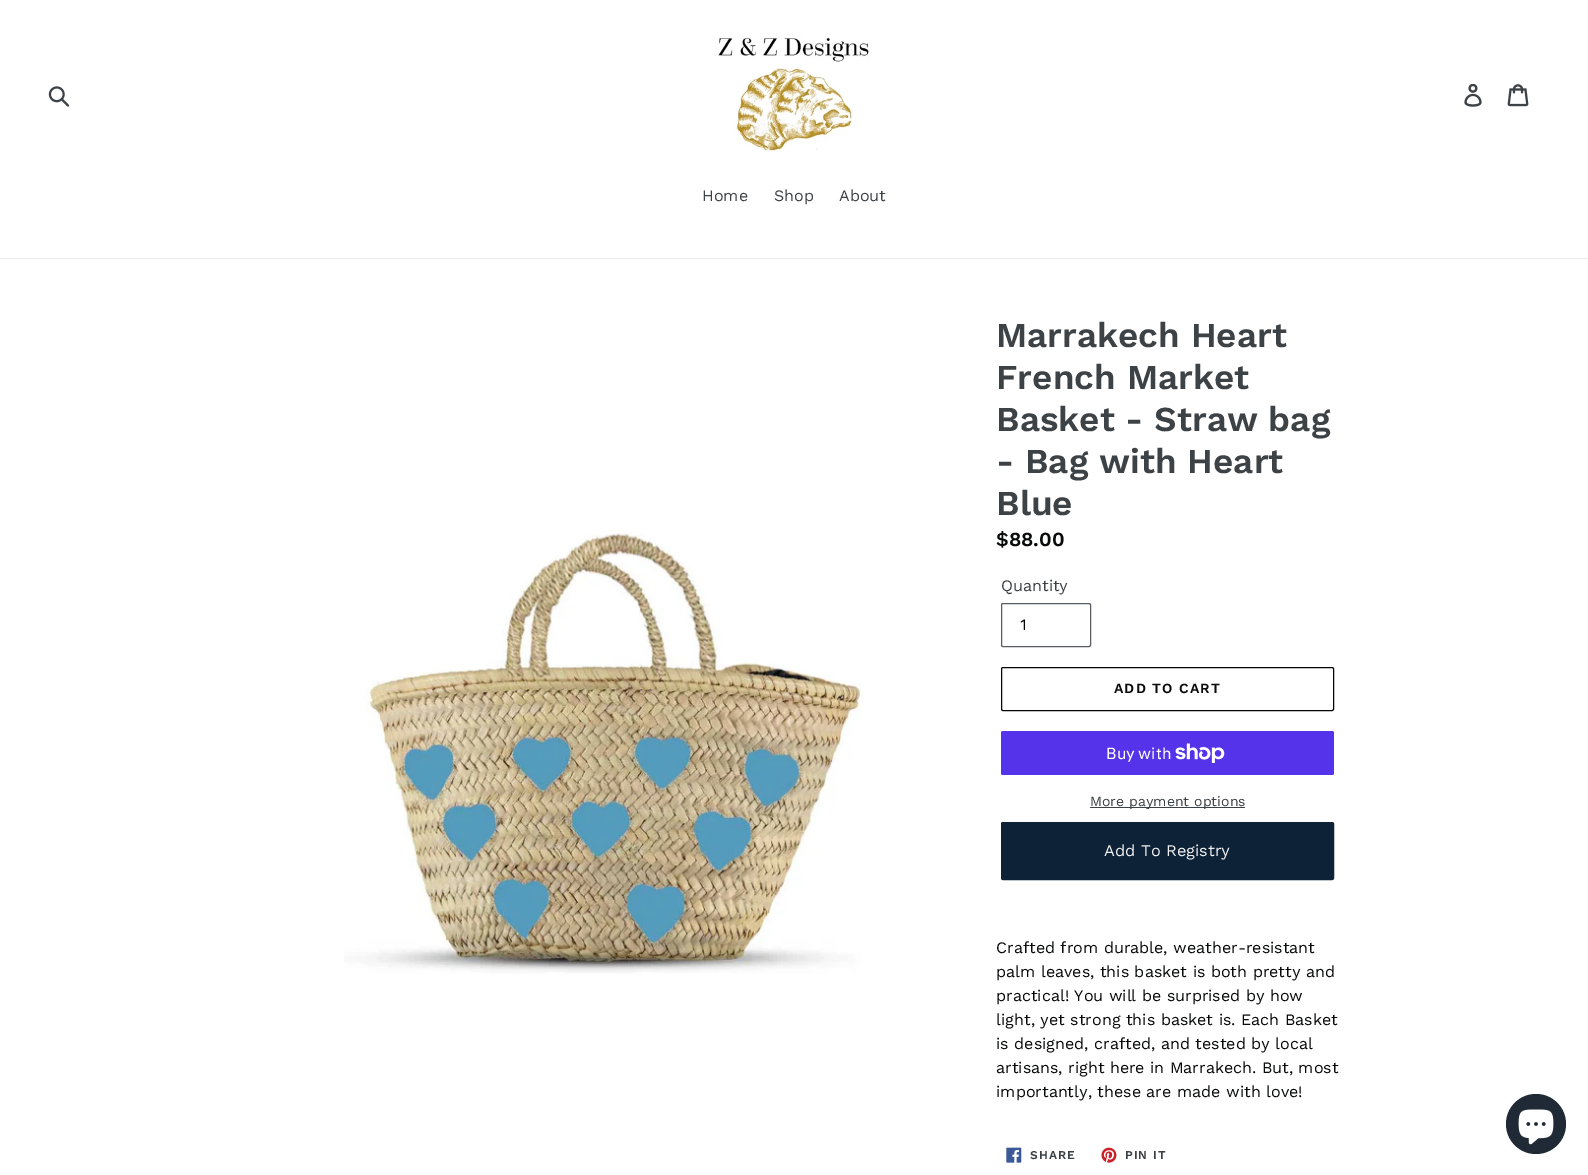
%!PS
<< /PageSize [1588 1175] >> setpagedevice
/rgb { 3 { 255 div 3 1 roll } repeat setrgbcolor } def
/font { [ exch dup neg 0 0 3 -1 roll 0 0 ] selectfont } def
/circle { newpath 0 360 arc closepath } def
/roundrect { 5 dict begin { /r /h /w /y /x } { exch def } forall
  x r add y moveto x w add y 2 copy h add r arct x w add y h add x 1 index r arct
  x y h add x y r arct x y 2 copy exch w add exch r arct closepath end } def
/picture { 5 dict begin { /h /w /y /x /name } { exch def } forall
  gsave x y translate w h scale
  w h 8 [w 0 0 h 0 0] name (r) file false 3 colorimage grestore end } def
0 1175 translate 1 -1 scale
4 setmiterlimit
255 255 255 rgb
0 0 1588 1175 rectfill
(img/1.rgb) 48 86 22 21 picture
(img/2.rgb) 718 37 152 115 picture
(img/3.rgb) 1464 84 18 23 picture
(img/4.rgb) 1507 84 22 23 picture
232 233 235 rgb
0 258 1588 1 rectfill
(img/5.rgb) 344 531 517 443 picture
90 94 98 rgb
1001.5 603.5 89 43 1.5 roundrect stroke
5 5 5 rgb
1001.5 667.5 332 43 1.5 roundrect stroke
84 51 235 rgb
1001 731 333 44 2 roundrect fill
(img/6.rgb) 1175 743 50 20 picture
61 66 70 rgb
1090 807 155 1 rectfill
13 34 54 rgb
1001.5 822.5 332 57 1.5 roundrect gsave fill grestore
stroke
(img/7.rgb) 1006 1147 16 16 picture
(img/8.rgb) 1101 1147 16 16 picture
32 42 54 rgb
1536 1124 30 circle fill
(img/9.rgb) 1518 1109 36 36 picture
/WorkSans-Regular 16 font
61 66 70 rgb
[
  [(Home) 702 201]
  [(Shop) 774 201]
  [(About) 839 201]
] { aload pop moveto show } forall
/WorkSans-SemiBold 35 font
[
  [(Marrakech Heart) 996 347]
  [(French Market) 996 389]
  [(Basket - Straw bag) 996 431]
  [(- Bag with Heart) 996 473]
  [(Blue) 996 515]
] { aload pop moveto show } forall
/WorkSans-SemiBold 20 font
9 10 10 rgb
996 546 moveto ($88.00) show
/WorkSans-Regular 16 font
61 66 70 rgb
1001 591 moveto (Quantity) show
0 0 0 rgb
1020 630 moveto (1) show
/WorkSans-SemiBold 14 font
9 10 10 rgb
1114 693 moveto 1.1 0 (ADD TO CART) ashow
/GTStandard-Regular 16 font
255 255 255 rgb
1106 759 moveto (Buy with) show
/WorkSans-Regular 14 font
61 66 70 rgb
1090 806 moveto (More payment options) show
/WorkSans-Regular 16.25 font
241 241 241 rgb
1104 856 moveto (Add To Registry) show
/WorkSans-Regular 16 font
9 10 10 rgb
[
  [(Crafted from durable, weather-resistant) 996 953]
  [(palm leaves, this basket is both pretty and) 996 977]
  [(practical! You will be surprised by how) 996 1001]
  [(light, yet strong this basket is. Each Basket) 996 1025]
  [(is designed, crafted, and tested by local) 996 1049]
  [(artisans, right here in Marrakech. But, most) 996 1073]
  [(importantly, these are made with love!) 996 1097]
] { aload pop moveto show } forall
/WorkSans-SemiBold 12 font
61 66 70 rgb
1030 1159 moveto 1 0 (SHARE) ashow
1125 1159 moveto 1 0 (PIN IT) ashow
showpage
